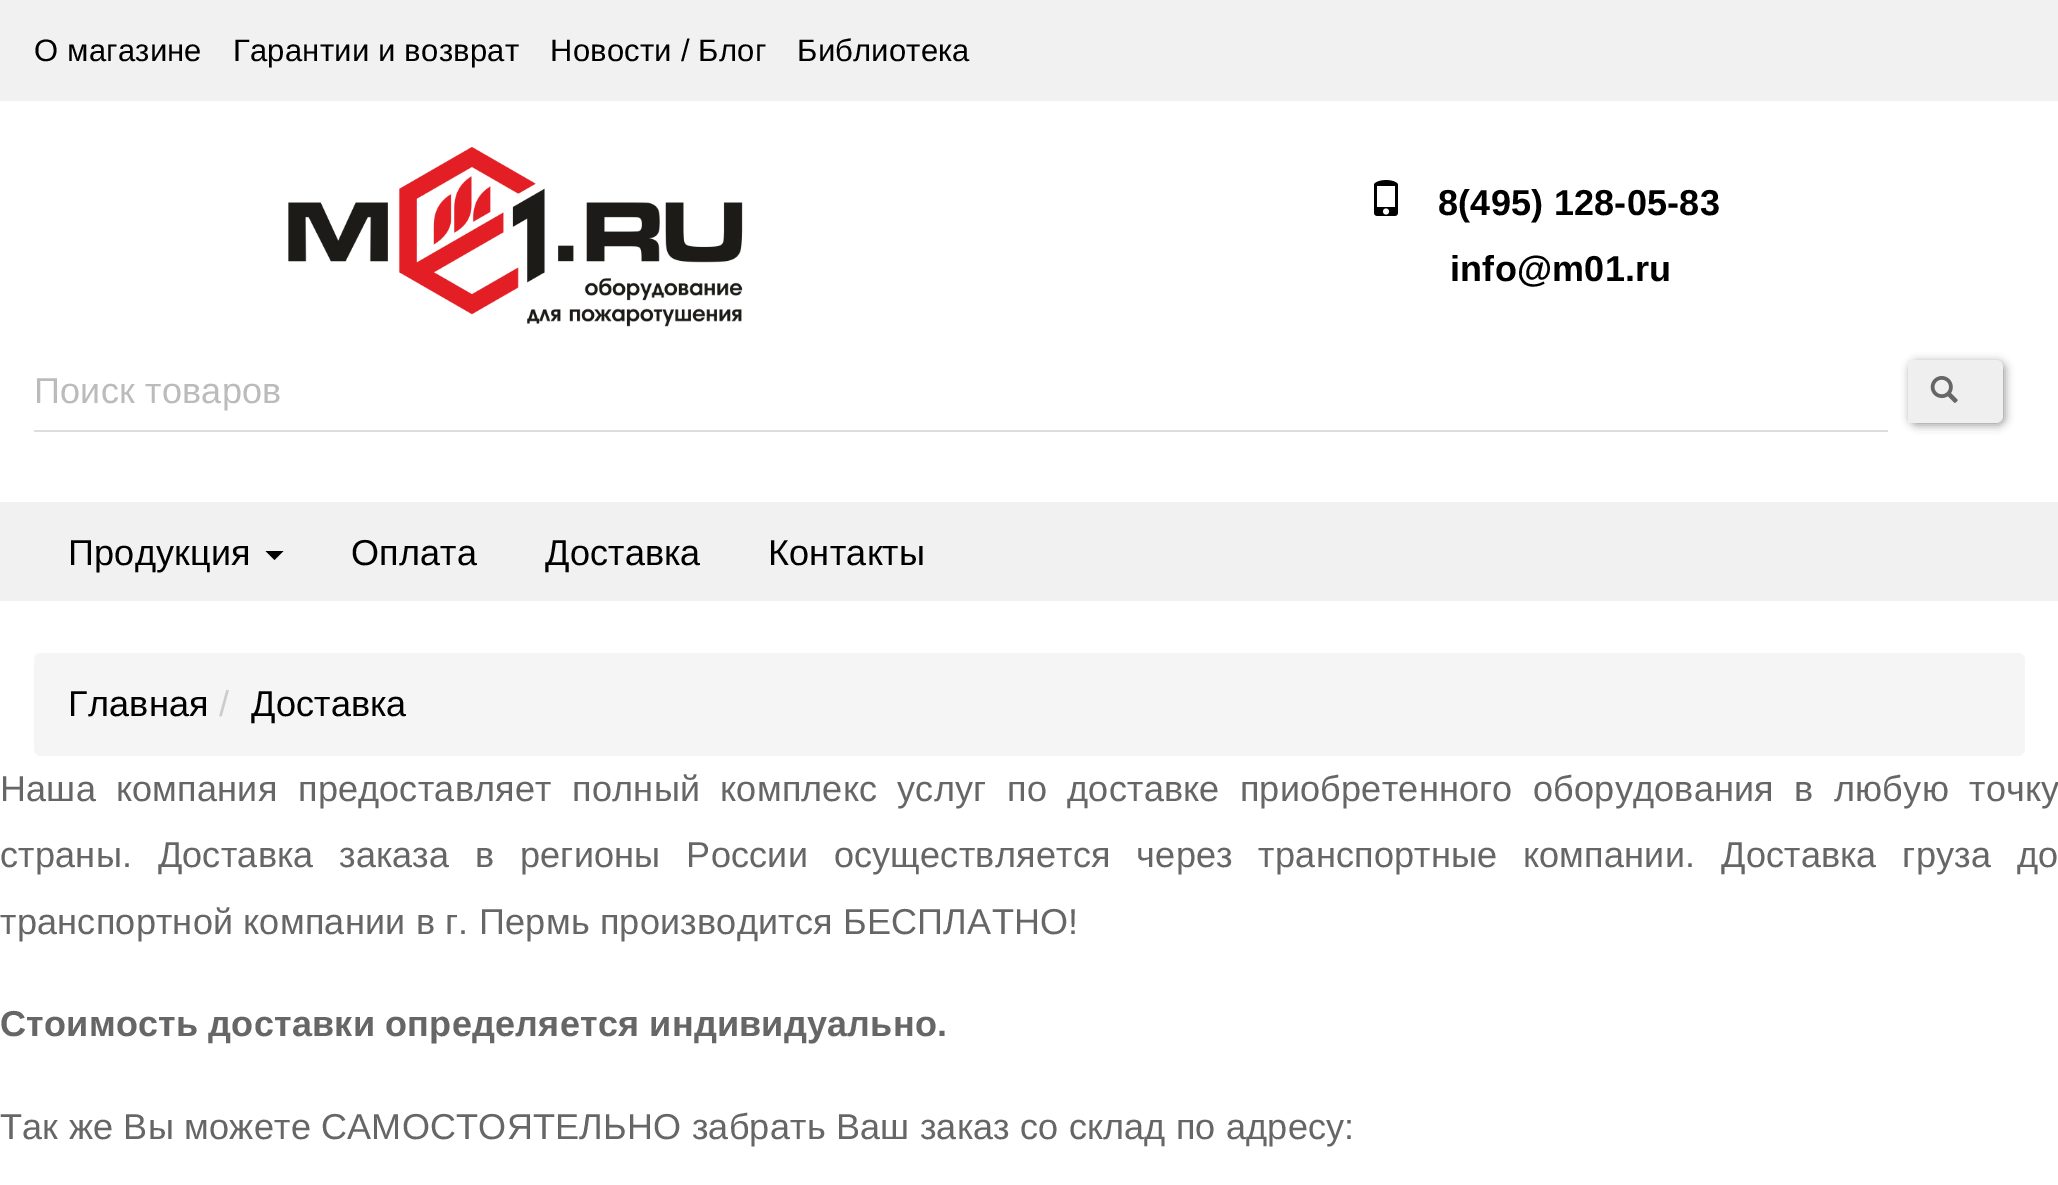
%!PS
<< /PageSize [2058 1185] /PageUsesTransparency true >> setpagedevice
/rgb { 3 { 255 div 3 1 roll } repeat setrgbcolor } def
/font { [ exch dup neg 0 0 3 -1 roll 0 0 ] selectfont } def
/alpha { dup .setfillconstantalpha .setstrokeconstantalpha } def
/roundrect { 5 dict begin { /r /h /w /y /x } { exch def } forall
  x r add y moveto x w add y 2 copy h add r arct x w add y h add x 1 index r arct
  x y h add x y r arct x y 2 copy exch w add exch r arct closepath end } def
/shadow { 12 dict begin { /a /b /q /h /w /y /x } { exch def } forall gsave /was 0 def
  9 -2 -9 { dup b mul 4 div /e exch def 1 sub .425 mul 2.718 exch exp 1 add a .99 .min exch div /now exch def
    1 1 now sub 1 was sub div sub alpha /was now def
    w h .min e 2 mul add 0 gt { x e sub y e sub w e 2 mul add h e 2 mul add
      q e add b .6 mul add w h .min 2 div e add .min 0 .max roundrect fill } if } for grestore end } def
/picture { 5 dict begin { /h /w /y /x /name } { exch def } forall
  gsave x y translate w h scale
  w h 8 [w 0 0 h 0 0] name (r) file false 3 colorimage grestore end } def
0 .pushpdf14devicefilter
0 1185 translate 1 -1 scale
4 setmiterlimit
255 255 255 rgb
0 0 2058 1185 rectfill
241 241 241 rgb
0 0 2058 101 rectfill
(img/1.rgb) 288 147 455 180 picture
(img/2.rgb) 1374 180 24 36 picture
221 221 221 rgb
34 430 1854 2 rectfill
0 0 0 rgb
1910 362 95 63 7 4.5 0.4 shadow
239 239 239 rgb
1908 360 moveto 1996 360 lineto 2000 360 2003 363 2003 367 curveto 2003 416 lineto 2003 420 2000 423 1996 423 curveto 1908 423 lineto closepath fill
(img/3.rgb) 1930 376 28 27 picture
241 241 241 rgb
0 502 2058 99 rectfill
0 0 0 rgb
265.5 551 moveto 283.5 551 lineto 274.5 560 lineto closepath fill
245 245 245 rgb
34 653 1991 103 7 roundrect fill
/LiberationSans-Regular 31 font
0 0 0 rgb
34 61 moveto 0.23 0 (О магазине) ashow
233 61 moveto 0.23 0 (Гарантии и возврат) ashow
550 61 moveto 0.23 0 (Новости / Блог) ashow
797 61 moveto 0.23 0 (Библиотека) ashow
/LiberationSans-Bold 36 font
1438 215 moveto 0.23 0 (8\(495\) 128-05-83) ashow
1450 281 moveto 0.23 0 (info@m01.ru) ashow
/LiberationSans-Regular 36 font
187 187 187 rgb
34 403 moveto 0.23 0 (Поиск товаров) ashow
0 0 0 rgb
68 565 moveto 0.23 0 (Продукция) ashow
351 565 moveto 0.23 0 (Оплата) ashow
545 565 moveto 0.23 0 (Доставка) ashow
768 565 moveto 0.23 0 (Контакты) ashow
68 716 moveto 0.23 0 (Главная) ashow
204 204 204 rgb
219 716 moveto 0.23 0 (/) ashow
0 0 0 rgb
251 716 moveto 0.23 0 (Доставка) ashow
102 102 102 rgb
0 801 moveto 10.1 0 32 0.23 0 (Наша компания предоставляет полный комплекс услуг по доставке приобретенного оборудования в любую точку) awidthshow
0 867 moveto 15.5 0 32 0.23 0 (страны. Доставка заказа в регионы России осуществляется через транспортные компании. Доставка груза до) awidthshow
0 934 moveto 0.23 0 (транспортной компании в г. Пермь производится БЕСПЛАТНО!) ashow
/LiberationSans-Bold 36 font
0 1036 moveto 0.23 0 (Стоимость доставки определяется индивидуально.) ashow
/LiberationSans-Regular 36 font
0 1139 moveto 0.23 0 (Так же Вы можете САМОСТОЯТЕЛЬНО забрать Ваш заказ со склад по адресу:) ashow
.poppdf14devicefilter showpage
